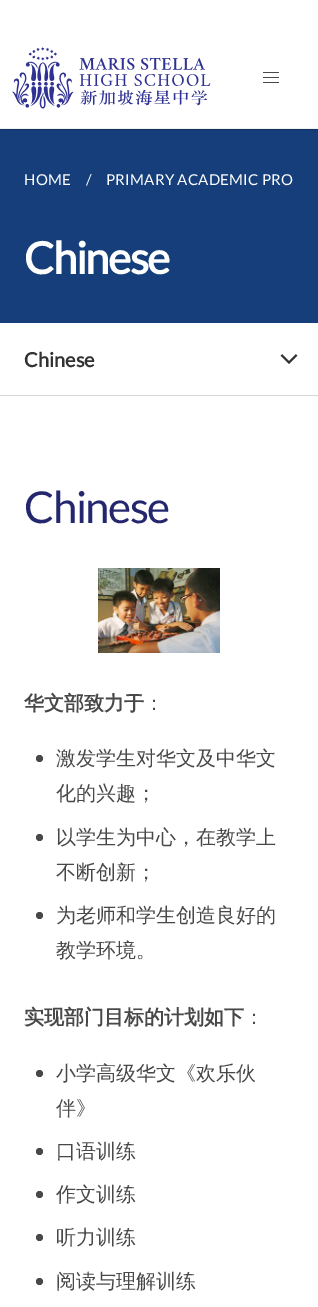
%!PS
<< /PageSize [318 1307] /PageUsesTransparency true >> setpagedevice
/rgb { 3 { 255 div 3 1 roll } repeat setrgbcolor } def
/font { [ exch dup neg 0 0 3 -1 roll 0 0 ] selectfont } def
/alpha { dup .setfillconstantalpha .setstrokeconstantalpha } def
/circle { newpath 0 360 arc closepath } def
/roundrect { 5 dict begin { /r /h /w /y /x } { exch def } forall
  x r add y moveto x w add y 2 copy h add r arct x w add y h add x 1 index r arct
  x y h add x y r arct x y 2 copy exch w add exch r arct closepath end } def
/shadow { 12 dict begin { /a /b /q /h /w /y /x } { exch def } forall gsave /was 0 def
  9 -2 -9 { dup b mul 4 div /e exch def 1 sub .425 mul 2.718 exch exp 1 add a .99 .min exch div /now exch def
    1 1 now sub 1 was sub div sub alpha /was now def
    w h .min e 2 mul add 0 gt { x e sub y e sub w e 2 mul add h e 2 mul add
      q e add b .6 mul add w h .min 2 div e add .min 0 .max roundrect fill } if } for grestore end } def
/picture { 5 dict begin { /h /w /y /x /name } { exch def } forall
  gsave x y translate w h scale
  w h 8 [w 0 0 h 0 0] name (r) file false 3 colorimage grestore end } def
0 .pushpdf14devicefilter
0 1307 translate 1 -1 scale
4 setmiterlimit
255 255 255 rgb
0 0 318 1307 rectfill
21 62 123 rgb
0 129 318 194 rectfill
gsave
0 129 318 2 rectclip
0 0 0 rgb
0 -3 318 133 0 1 0.24 shadow
grestore
240 240 240 rgb
0 128 318 1 rectfill
(img/1.rgb) 12 47 199 62 picture
[
  [263 72 16 1 72 72 72]
  [263 77 16 1 72 72 72]
  [263 82 16 1 72 72 72]
  [0 395 318 1 214 214 214]
] { aload pop rgb rectfill } forall
(img/2.rgb) 280 354 18 10 picture
(img/3.rgb) 98 568 122 85 picture
72 72 72 rgb
39.5 758.5 3.5 circle fill
39.5 837.5 3.5 circle fill
39.5 915.5 3.5 circle fill
39.5 1073.5 3.5 circle fill
39.5 1151.5 3.5 circle fill
39.5 1194.5 3.5 circle fill
39.5 1237.5 3.5 circle fill
39.5 1281.5 3.5 circle fill
/Lato-Regular 15 font
255 255 255 rgb
24 185 moveto 0.25 0 (HOME) ashow
86 185 moveto (/) show
106 185 moveto 0.25 0 (PRIMARY ACADEMIC PRO) ashow
/Lato-Bold 44 font
24 274 moveto -1.5 0 (Chinese) ashow
/Lato-Bold 20 font
50 50 50 rgb
24 367 moveto (Chinese) show
/Lato-Regular 44 font
36 39 110 rgb
24 523 moveto -1.5 0 (Chinese) ashow
/WenQuanYiZenHei-Bold 20 font
72 72 72 rgb
24 710 moveto (华文部致力于) show
/WenQuanYiZenHei-Medium 20 font
[
  [(：) 144 710]
  [(激发学生对华文及中华文) 56 765]
  [(化的兴趣；) 56 800]
  [(以学生为中心，在教学上) 56 844]
  [(不断创新；) 56 879]
  [(为老师和学生创造良好的) 56 922]
  [(教学环境。) 56 957]
] { aload pop moveto show } forall
/WenQuanYiZenHei-Bold 20 font
24 1024 moveto (实现部门目标的计划如下) show
/WenQuanYiZenHei-Medium 20 font
[
  [(：) 244 1024]
  [(小学高级华文《欢乐伙) 56 1080]
  [(伴》) 56 1115]
  [(口语训练) 56 1158]
  [(作文训练) 56 1201]
  [(听力训练) 56 1244]
  [(阅读与理解训练) 56 1288]
] { aload pop moveto show } forall
.poppdf14devicefilter showpage
